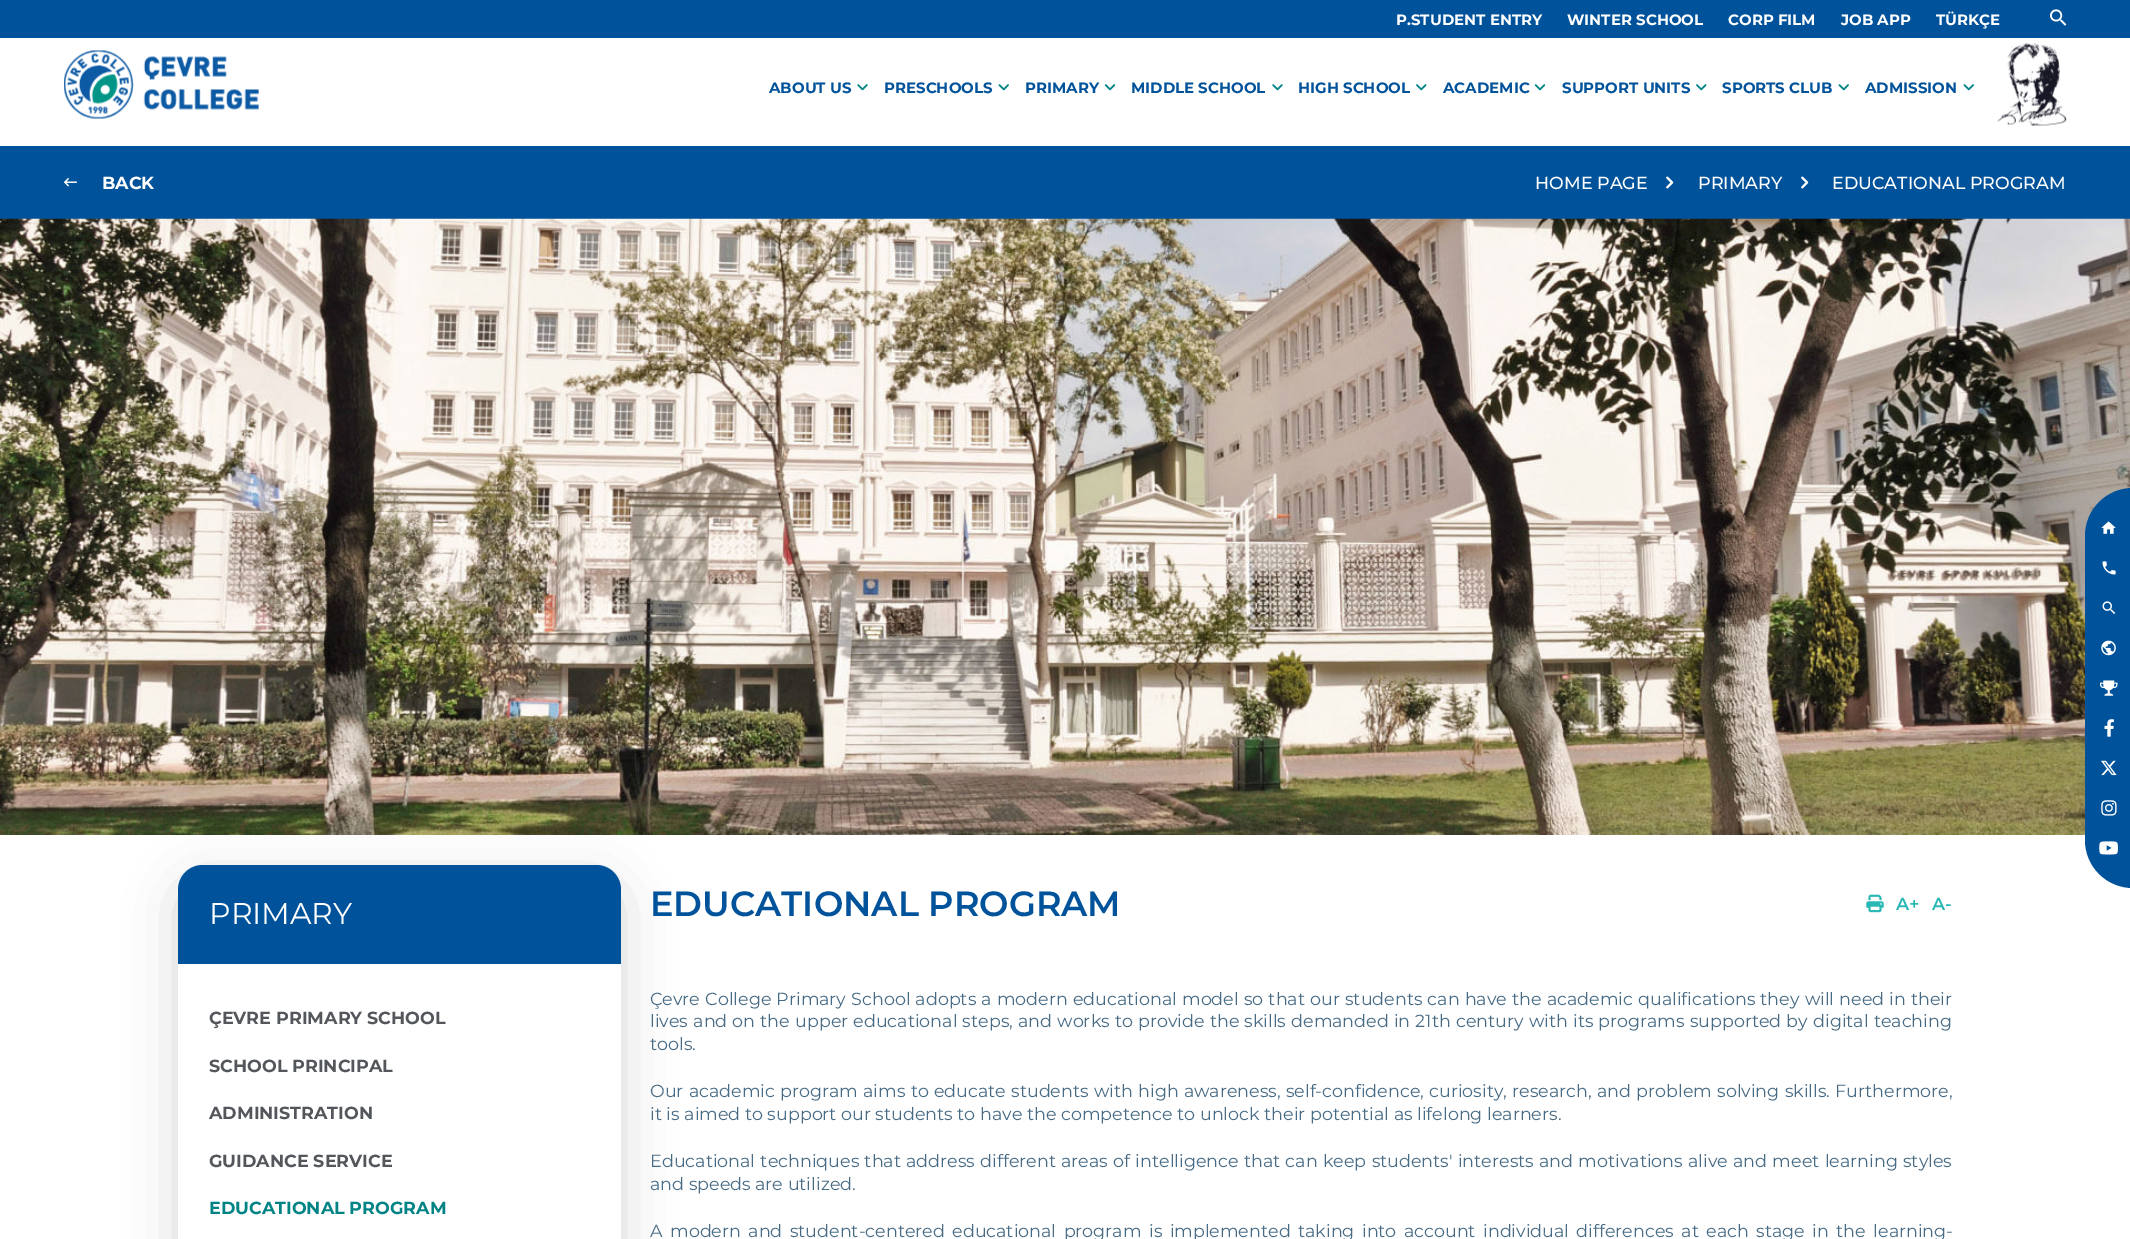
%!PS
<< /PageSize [2130 1239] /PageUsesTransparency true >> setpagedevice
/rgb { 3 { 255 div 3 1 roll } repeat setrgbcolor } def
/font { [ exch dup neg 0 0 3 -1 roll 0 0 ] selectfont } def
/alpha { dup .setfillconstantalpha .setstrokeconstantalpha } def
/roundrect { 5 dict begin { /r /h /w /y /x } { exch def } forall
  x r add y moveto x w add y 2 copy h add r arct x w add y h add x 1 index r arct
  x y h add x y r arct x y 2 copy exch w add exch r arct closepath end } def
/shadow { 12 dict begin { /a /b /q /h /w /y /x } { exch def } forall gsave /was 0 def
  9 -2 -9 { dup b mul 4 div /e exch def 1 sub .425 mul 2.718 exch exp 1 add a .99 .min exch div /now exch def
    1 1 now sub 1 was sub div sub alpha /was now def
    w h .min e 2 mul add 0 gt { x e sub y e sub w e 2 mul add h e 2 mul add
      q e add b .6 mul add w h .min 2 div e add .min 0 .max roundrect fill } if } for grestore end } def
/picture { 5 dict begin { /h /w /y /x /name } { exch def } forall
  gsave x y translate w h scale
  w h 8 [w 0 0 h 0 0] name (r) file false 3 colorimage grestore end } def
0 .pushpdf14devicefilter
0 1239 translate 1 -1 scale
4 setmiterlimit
255 255 255 rgb
0 0 2130 1239 rectfill
0 82 154 rgb
0 0 2130 38 rectfill
(img/1.rgb) 2050 9 17 17 picture
(img/2.rgb) 64 50 195 69 picture
(img/3.rgb) 857 84 11 7 picture
(img/4.rgb) 998 84 11 7 picture
(img/5.rgb) 1104 84 12 7 picture
(img/3.rgb) 1272 84 11 7 picture
(img/6.rgb) 1416 84 11 7 picture
(img/5.rgb) 1534 84 12 7 picture
(img/6.rgb) 1696 84 11 7 picture
(img/4.rgb) 1838 84 11 7 picture
(img/4.rgb) 1963 84 11 7 picture
(img/7.rgb) 1997 43 70 83 picture
0 146 2130 73 rectfill
(img/8.rgb) 63 177 14 10 picture
(img/9.rgb) 1666 176 8 13 picture
(img/9.rgb) 1801 176 8 13 picture
(img/10.rgb) 0 218 2130 617 picture
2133 488 moveto 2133 888 lineto 2106.5 888 2085 866.5 2085 840 curveto 2085 536 lineto 2085 509.5 2106.5 488 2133 488 curveto closepath fill
(img/11.rgb) 2101 521 15 13 picture
(img/12.rgb) 2102 561 14 14 picture
(img/13.rgb) 2102 601 14 13 picture
(img/14.rgb) 2101 640 15 16 picture
(img/15.rgb) 2100 680 18 16 picture
(img/16.rgb) 2104 719 10 18 picture
(img/17.rgb) 2101 760 16 16 picture
(img/18.rgb) 2101 800 16 16 picture
(img/19.rgb) 2099 841 19 14 picture
0 0 0 rgb
178 880 443 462 25 26 0.16 shadow
255 255 255 rgb
178 865 443 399 25 roundrect fill
0 82 154 rgb
203 865 moveto 596 865 lineto 610 865 621 876 621 890 curveto 621 964 lineto 178 964 lineto 178 890 lineto 178 876 189 865 203 865 curveto closepath fill
(img/20.rgb) 1866 894 18 19 picture
/Montserrat-Bold 15 font
255 255 255 rgb
[
  [(P.STUDENT ENTRY) 1396 25]
  [(WINTER SCHOOL) 1567 25]
  [(CORP FILM) 1728 25]
  [(JOB APP) 1841 25]
  [(TÜRKÇE) 1936 25]
] { aload pop moveto show } forall
0 82 154 rgb
[
  [(ABOUT US) 769 93]
  [(PRESCHOOLS) 884 93]
  [(PRIMARY) 1025 93]
  [(MIDDLE SCHOOL) 1131 93]
  [(HIGH SCHOOL) 1298 93]
  [(ACADEMIC) 1443 93]
  [(SUPPORT UNITS) 1562 93]
  [(SPORTS CLUB) 1722 93]
  [(ADMISSION) 1865 93]
] { aload pop moveto show } forall
/Montserrat-Bold 17.5 font
255 255 255 rgb
102 189 moveto (BACK) show
/Montserrat-Medium 17.5 font
[
  [(HOME PAGE) 1535 189]
  [(PRIMARY) 1698 189]
  [(EDUCATIONAL PROGRAM) 1832 189]
] { aload pop moveto show } forall
/Montserrat-Regular 30 font
209 924 moveto (PRIMARY) show
/Montserrat-Bold 17.5 font
83 86 91 rgb
[
  [(ÇEVRE PRIMARY SCHOOL) 209 1024]
  [(SCHOOL PRINCIPAL) 209 1072]
  [(ADMINISTRATION) 209 1119]
  [(GUIDANCE SERVICE) 209 1167]
] { aload pop moveto show } forall
0 131 133 rgb
209 1214 moveto (EDUCATIONAL PROGRAM) show
/Montserrat-SemiBold 35 font
0 82 154 rgb
650 916 moveto (EDUCATIONAL PROGRAM) show
/Montserrat-SemiBold 17.5 font
42 184 181 rgb
1896 910 moveto (A+) show
1932 910 moveto (A-) show
/Montserrat-Regular 17.5 font
71 106 133 rgb
650 1005 moveto 0.6 0 32 (Çevre College Primary School adopts a modern educational model so that our students can have the academic qualifications they will need in their) widthshow
650 1027 moveto 0.6 0 32 (lives and on the upper educational steps, and works to provide the skills demanded in 21th century with its programs supported by digital teaching) widthshow
650 1050 moveto (tools.) show
650 1097 moveto 0.7 0 32 (Our academic program aims to educate students with high awareness, self-confidence, curiosity, research, and problem solving skills. Furthermore,) widthshow
650 1120 moveto (it is aimed to support our students to have the competence to unlock their potential as lifelong learners.) show
650 1167 moveto 0.75 0 32 (Educational techniques that address different areas of intelligence that can keep students' interests and motivations alive and meet learning styles) widthshow
650 1190 moveto (and speeds are utilized.) show
650 1237 moveto 2.9 0 32 (A modern and student-centered educational program is implemented taking into account individual differences at each stage in the learning-) widthshow
.poppdf14devicefilter showpage
